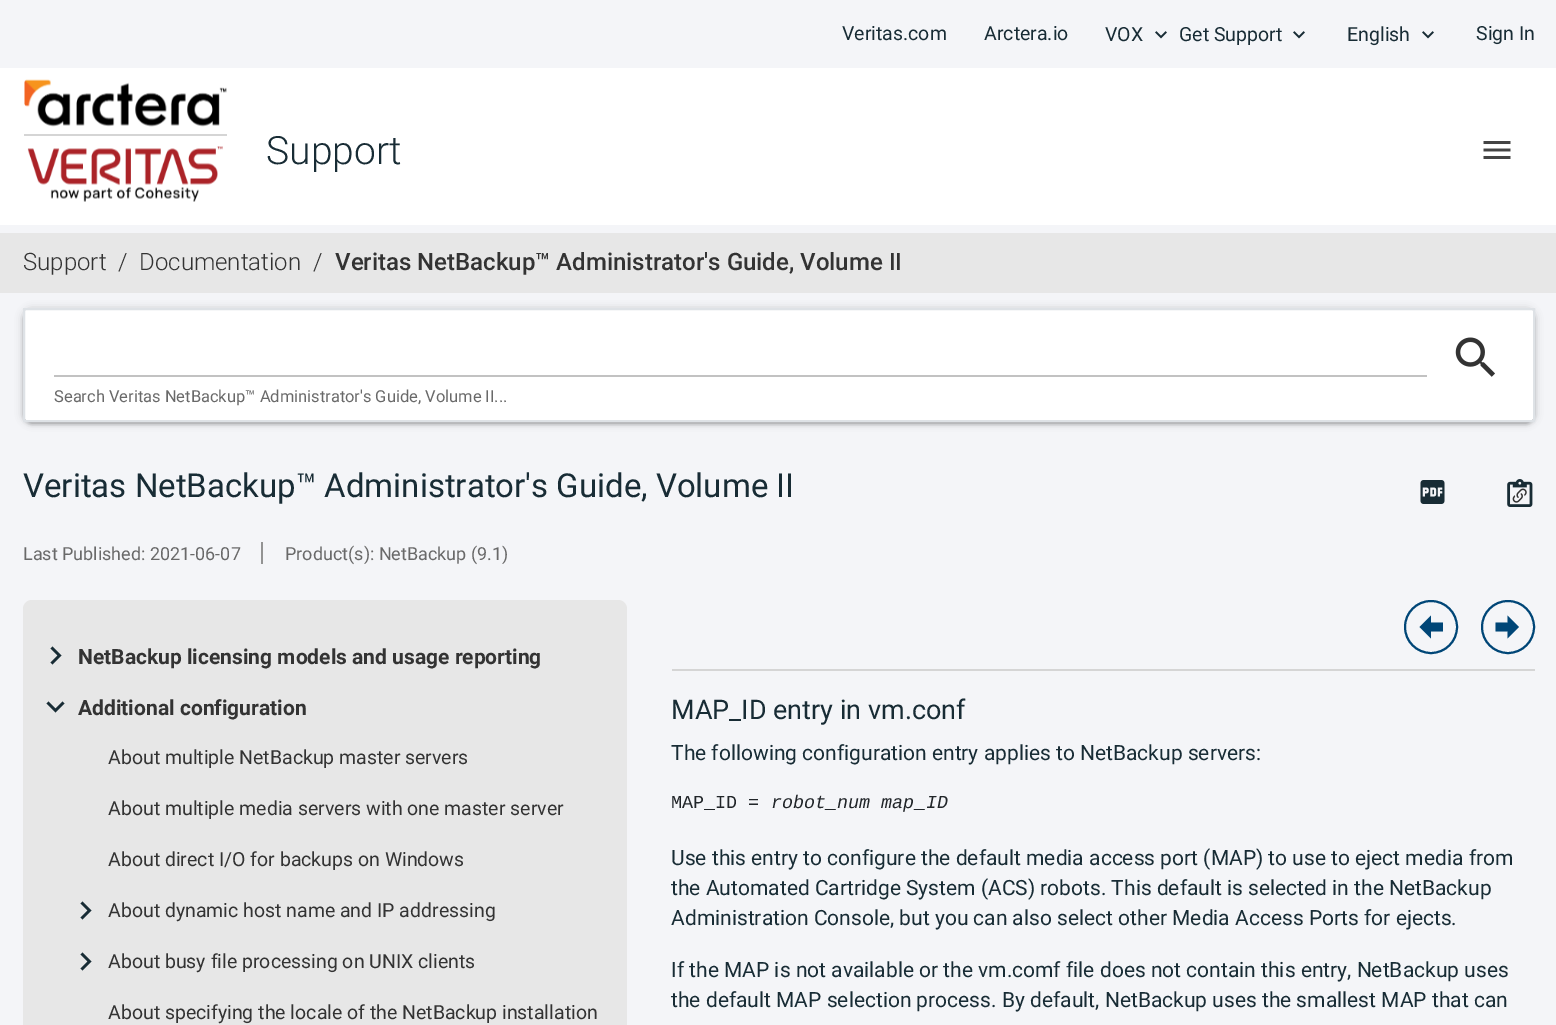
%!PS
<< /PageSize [1556 1025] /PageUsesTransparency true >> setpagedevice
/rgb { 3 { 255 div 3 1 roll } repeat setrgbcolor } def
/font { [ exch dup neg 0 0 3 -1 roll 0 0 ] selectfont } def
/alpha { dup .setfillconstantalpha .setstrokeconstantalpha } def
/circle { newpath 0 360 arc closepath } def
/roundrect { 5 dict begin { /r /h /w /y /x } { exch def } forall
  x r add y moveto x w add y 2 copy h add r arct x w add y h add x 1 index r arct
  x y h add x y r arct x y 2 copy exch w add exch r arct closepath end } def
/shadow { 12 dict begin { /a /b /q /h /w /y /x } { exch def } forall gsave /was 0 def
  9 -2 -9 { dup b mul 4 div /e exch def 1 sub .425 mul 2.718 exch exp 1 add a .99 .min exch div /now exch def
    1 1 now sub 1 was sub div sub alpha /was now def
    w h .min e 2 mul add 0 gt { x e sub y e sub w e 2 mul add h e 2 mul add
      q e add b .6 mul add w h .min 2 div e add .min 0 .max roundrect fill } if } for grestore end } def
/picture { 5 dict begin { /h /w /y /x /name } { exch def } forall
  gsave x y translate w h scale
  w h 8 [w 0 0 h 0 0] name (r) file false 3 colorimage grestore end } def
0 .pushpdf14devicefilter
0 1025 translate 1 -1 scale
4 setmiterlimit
244 245 248 rgb
0 0 1556 1025 rectfill
(img/1.rgb) 1155 31 12 8 picture
(img/1.rgb) 1293 31 12 8 picture
(img/1.rgb) 1422 31 12 8 picture
255 255 255 rgb
0 68 1556 157 rectfill
(img/2.rgb) 24 79 203 48 picture
213 213 213 rgb
24 134 203 2 rectfill
(img/3.rgb) 27 146 196 56 picture
(img/4.rgb) 1483 141 28 18 picture
231 231 231 rgb
0 233 1556 60 rectfill
0 0 0 rgb
26 315 1506 108 6 1 0.12 shadow
23 311 1512 114 9 1.5 0.14 shadow
23 309 1512 114 9 4 0.2 shadow
255 255 255 rgb
23 308 1512 114 9 roundrect fill
222 226 230 rgb
2 setlinewidth
24 309 1510 112 rectstroke
194 194 194 rgb
54 375 1373 2 rectfill
(img/5.rgb) 1455 337 40 40 picture
(img/6.rgb) 1420 480 25 24 picture
(img/7.rgb) 1507 479 26 28 picture
(img/8.rgb) 1512 488 15 15 picture
147 147 147 rgb
261 542 2 22 rectfill
231 231 231 rgb
23 600 604 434 9 roundrect fill
24 44 53 rgb
50.5 662.5 moveto 57.5 655.5 lineto 50.5 648.5 lineto 52.5 646.5 lineto 61.5 655.5 lineto 52.5 664.5 lineto closepath fill
48.5 701.5 moveto 55.5 708.5 lineto 62.5 701.5 lineto 64.5 703.5 lineto 55.5 712.5 lineto 46.5 703.5 lineto closepath fill
80.5 917.5 moveto 87.5 910.5 lineto 80.5 903.5 lineto 82.5 901.5 lineto 91.5 910.5 lineto 82.5 919.5 lineto closepath fill
80.5 968.5 moveto 87.5 961.5 lineto 80.5 954.5 lineto 82.5 952.5 lineto 91.5 961.5 lineto 82.5 970.5 lineto closepath fill
213 213 213 rgb
672 669 863 2 rectfill
0 70 119 rgb
1431 627 26 circle stroke
1443 622.5 moveto 1443 631.5 lineto 1431 631.5 lineto 1431 638.5 lineto 1419.5 627 lineto 1431 615.5 lineto 1431 622.5 lineto closepath fill
1508 627 26 circle stroke
1495.5 631.5 moveto 1495.5 622.5 lineto 1507.5 622.5 lineto 1507.5 615.5 lineto 1519 627 lineto 1507.5 638.5 lineto 1507.5 631.5 lineto closepath fill
/Roboto-Regular 19.5 font
24 44 53 rgb
[
  [(Veritas.com) 842 40]
  [(Arctera.io) 984 40]
  [(VOX) 1105 41]
  [(Get Support) 1179 41]
  [(English) 1347 41]
  [(Sign In) 1476 40]
] { aload pop moveto show } forall
/Roboto-Light 39 font
266 164 moveto (Support) show
/Roboto-Light 24 font
51 51 51 rgb
[
  [(Support) 23 270]
  [(/) 118 270]
  [(Documentation) 139 270]
  [(/) 313 270]
] { aload pop moveto show } forall
/Roboto-Medium 24 font
335 270 moveto (Veritas NetBackup™ Administrator's Guide, Volume II) show
/Roboto-Regular 16.5 font
105 105 105 rgb
54 402 moveto (Search Veritas NetBackup™ Administrator's Guide, Volume II...) show
/Roboto-Regular 33 font
24 44 53 rgb
23 497 moveto (Veritas NetBackup™ Administrator's Guide, Volume II) show
/Roboto-Regular 18 font
105 105 105 rgb
23 560 moveto (Last Published: 2021-06-07) show
285 560 moveto (Product\(s\): NetBackup \(9.1\)) show
/Roboto-Bold 21 font
51 51 51 rgb
78 664 moveto (NetBackup licensing models and usage reporting) show
78 715 moveto (Additional configuration) show
/Roboto-Regular 19.5 font
[
  [(About multiple NetBackup master servers) 108 764]
  [(About multiple media servers with one master server) 108 815]
  [(About direct I/O for backups on Windows) 108 866]
  [(About dynamic host name and IP addressing) 108 917]
  [(About busy file processing on UNIX clients) 108 968]
  [(About specifying the locale of the NetBackup installation) 108 1019]
] { aload pop moveto show } forall
/Roboto-Regular 27 font
24 44 53 rgb
671 719 moveto (MAP_ID entry in vm.conf) show
/Roboto-Regular 21 font
671 760 moveto (The following configuration entry applies to NetBackup servers:) show
/LiberationMono-Regular 18.4 font
33 37 41 rgb
671 808 moveto (MAP_ID =) show
/LiberationMono-Italic 18.4 font
771 808 moveto (robot_num map_ID) show
/Roboto-Regular 21 font
24 44 53 rgb
[
  [(Use this entry to configure the default media access port \(MAP\) to use to eject media from) 671 865]
  [(the Automated Cartridge System \(ACS\) robots. This default is selected in the NetBackup) 671 895]
  [(Administration Console, but you can also select other Media Access Ports for ejects.) 671 925]
  [(If the MAP is not available or the vm.comf file does not contain this entry, NetBackup uses) 671 977]
  [(the default MAP selection process. By default, NetBackup uses the smallest MAP that can) 671 1007]
] { aload pop moveto show } forall
.poppdf14devicefilter showpage
